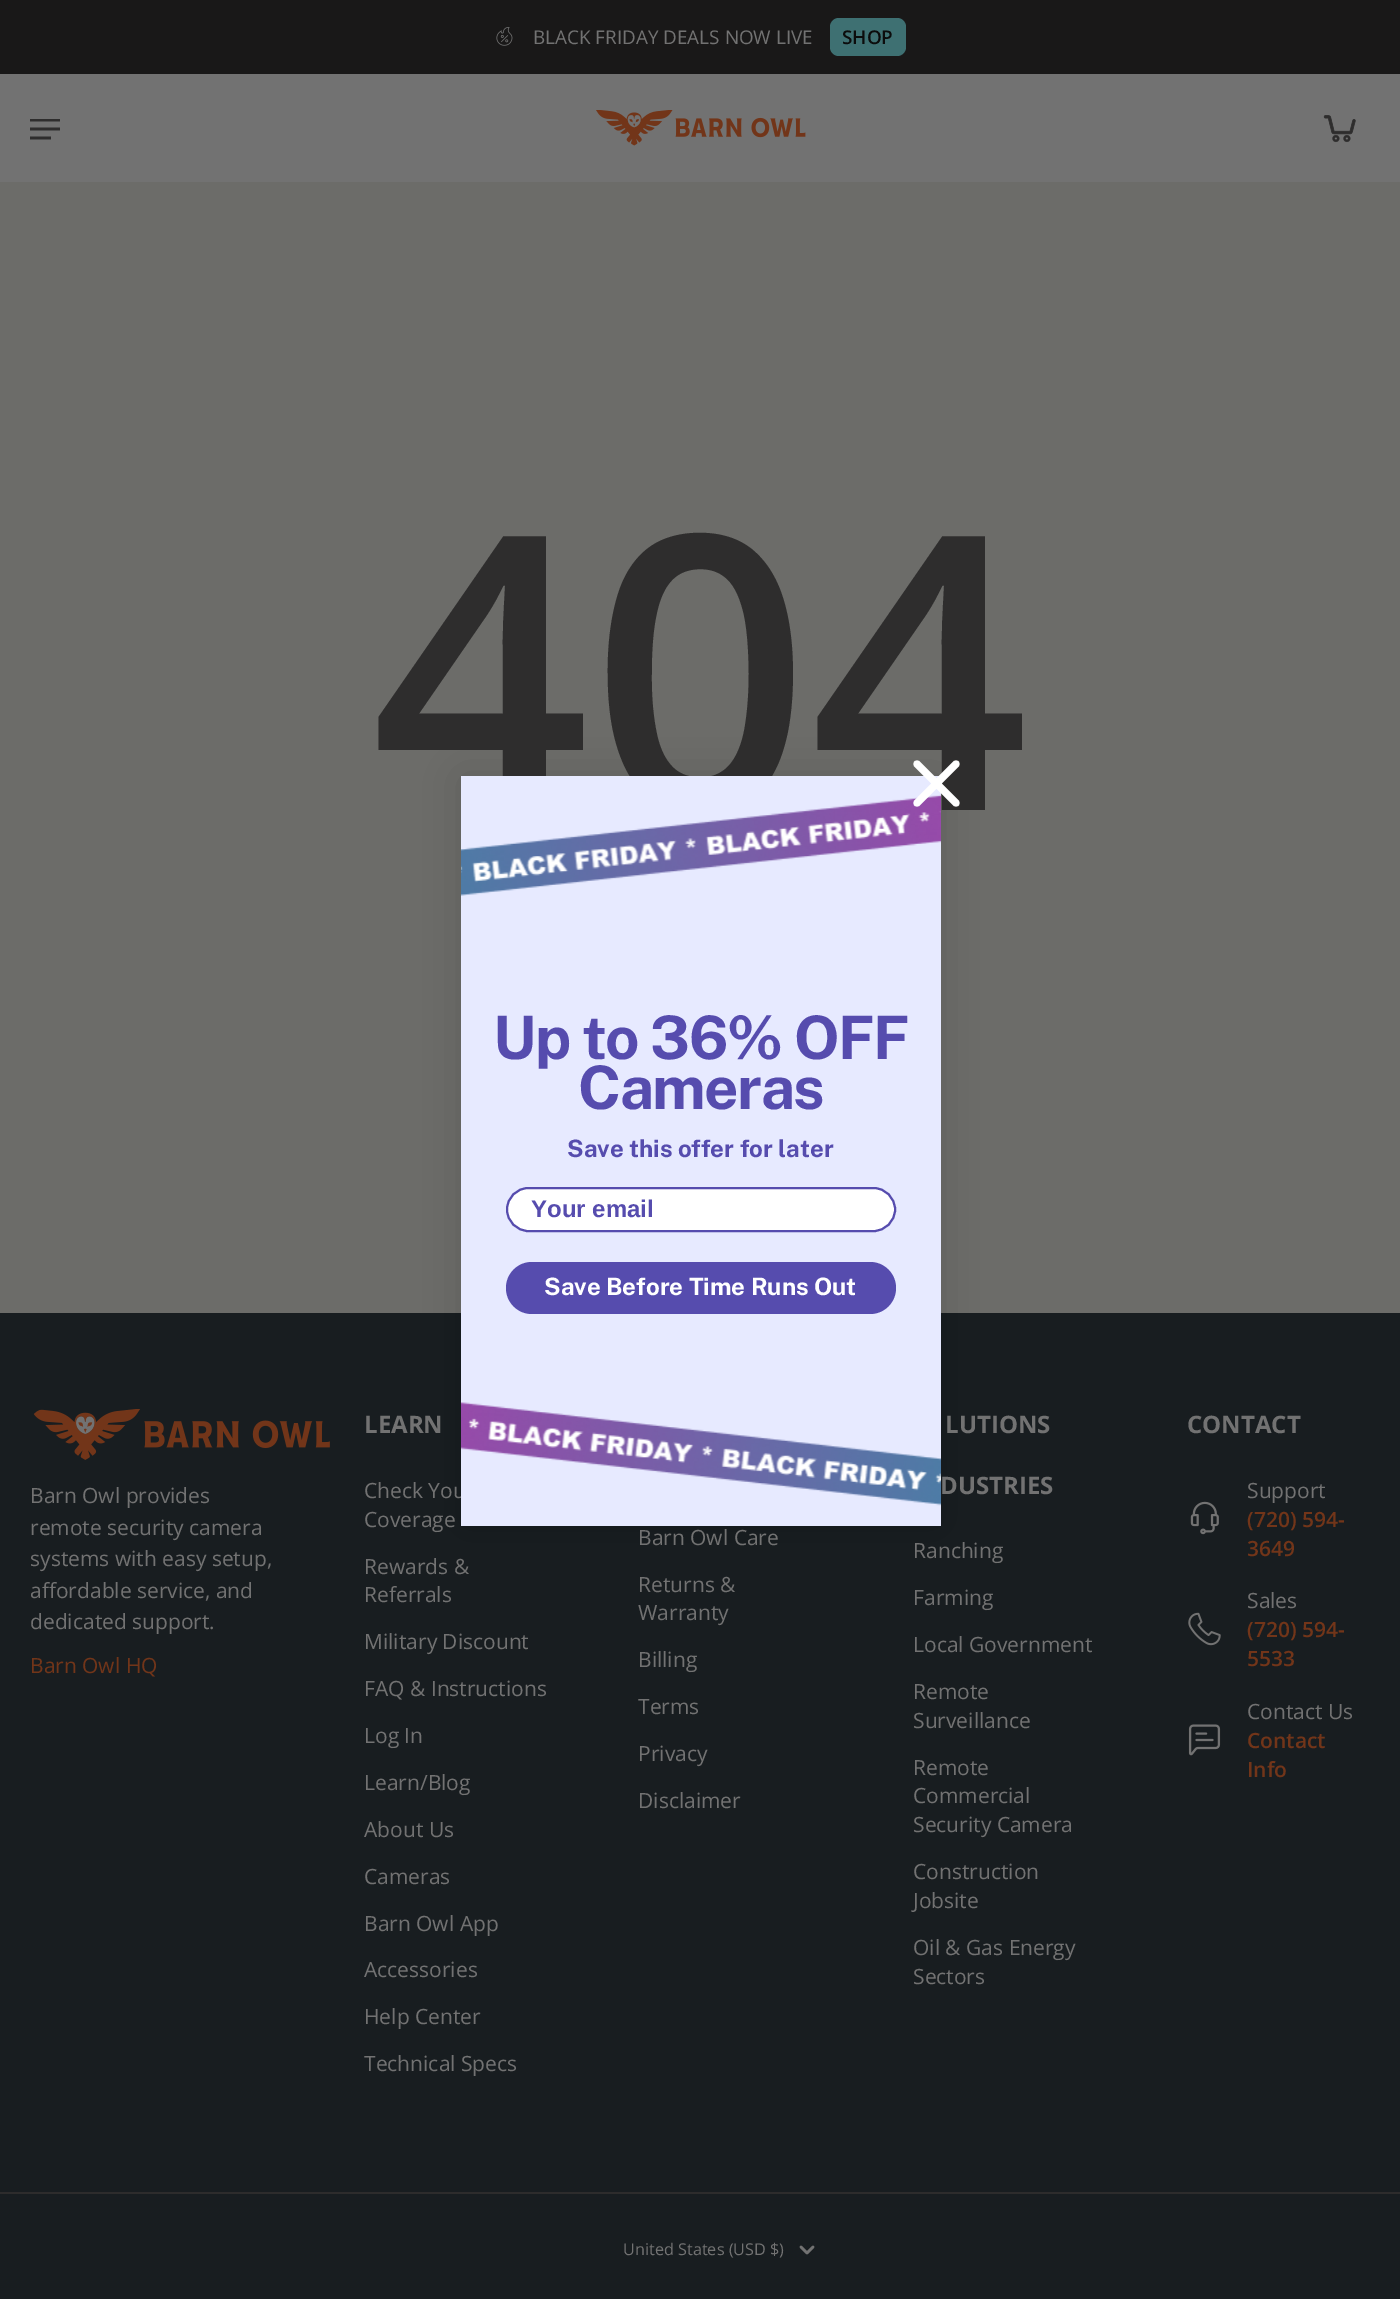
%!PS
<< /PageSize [1400 2299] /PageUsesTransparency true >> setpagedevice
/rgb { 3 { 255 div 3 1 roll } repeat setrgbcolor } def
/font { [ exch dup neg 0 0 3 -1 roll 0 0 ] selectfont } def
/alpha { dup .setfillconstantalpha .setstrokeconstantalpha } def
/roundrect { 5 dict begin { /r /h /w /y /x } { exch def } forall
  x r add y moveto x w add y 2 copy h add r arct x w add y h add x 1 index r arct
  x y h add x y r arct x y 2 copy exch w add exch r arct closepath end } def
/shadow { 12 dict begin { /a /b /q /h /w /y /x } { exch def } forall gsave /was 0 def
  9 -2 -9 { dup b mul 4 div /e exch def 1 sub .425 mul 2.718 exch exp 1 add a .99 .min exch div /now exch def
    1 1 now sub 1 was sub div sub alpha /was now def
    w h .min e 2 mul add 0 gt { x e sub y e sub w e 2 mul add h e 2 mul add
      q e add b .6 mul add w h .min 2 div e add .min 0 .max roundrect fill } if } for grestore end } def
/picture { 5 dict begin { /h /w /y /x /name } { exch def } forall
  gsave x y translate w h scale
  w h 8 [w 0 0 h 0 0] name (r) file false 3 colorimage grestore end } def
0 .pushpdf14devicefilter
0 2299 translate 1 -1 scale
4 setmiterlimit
108 108 105 rgb
0 0 1400 2299 rectfill
25 24 24 rgb
0 0 1400 74 rectfill
(img/1.rgb) 496 27 17 19 picture
62 112 114 rgb
830 18 76 38 9 roundrect fill
114 114 114 rgb
0 74 1400 108 rectfill
(img/2.rgb) 30 119 30 21 picture
(img/3.rgb) 596 110 210 36 picture
(img/4.rgb) 1323 115 33 28 picture
24 29 32 rgb
0 1313 1400 986 rectfill
45 44 44 rgb
0 2192 1400 2 rectfill
(img/5.rgb) 33 1409 297 51 picture
(img/6.rgb) 1190 1501 29 34 picture
(img/7.rgb) 1188 1612 33 34 picture
(img/8.rgb) 1188 1724 33 32 picture
114 114 114 rgb
2.5 setlinewidth
1 setlinecap
1 setlinejoin
801 2247 moveto 807 2253 lineto 813 2247 lineto stroke
0 0 0 rgb
461 776 480 750 0 22.5 0.15 shadow
/OpenSans-Regular 18.9 font
114 114 114 rgb
533 44 moveto (BLACK FRIDAY DEALS NOW LIVE) show
/OpenSans-SemiBold 18.9 font
12 12 12 rgb
842 44 moveto (SHOP) show
/OpenSans-SemiBold 384 font
46 45 45 rgb
371 810 moveto (404) show
/OpenSans-Regular 21 font
114 114 114 rgb
[
  [(Barn Owl provides) 30 1503]
  [(remote security camera) 30 1535]
  [(systems with easy setup,) 30 1566]
  [(affordable service, and) 30 1598]
  [(dedicated support.) 30 1629]
] { aload pop moveto show } forall
114 53 25 rgb
30 1673 moveto (Barn Owl HQ) show
/OpenSans-Bold 24 font
114 114 114 rgb
364 1433 moveto (LEARN) show
/OpenSans-Regular 21 font
[
  [(Check You) 364 1498]
  [(Coverage) 364 1527]
  [(Rewards &) 364 1574]
  [(Referrals) 364 1602]
  [(Military Discount) 364 1649]
  [(FAQ & Instructions) 364 1696]
  [(Log In) 364 1743]
  [(Learn/Blog) 364 1790]
  [(About Us) 364 1837]
  [(Cameras) 364 1884]
  [(Barn Owl App) 364 1931]
  [(Accessories) 364 1977]
  [(Help Center) 364 2024]
  [(Technical Specs) 364 2071]
  [(Barn Owl Care) 638 1545]
  [(Returns &) 638 1592]
  [(Warranty) 638 1620]
  [(Billing) 638 1667]
  [(Terms) 638 1714]
  [(Privacy) 638 1761]
  [(Disclaimer) 638 1808]
] { aload pop moveto show } forall
/OpenSans-Bold 24 font
945 1433 moveto (LUTIONS) show
940 1494 moveto (DUSTRIES) show
/OpenSans-Regular 21 font
[
  [(Ranching) 913 1558]
  [(Farming) 913 1605]
  [(Local Government) 913 1652]
  [(Remote) 913 1699]
  [(Surveillance) 913 1728]
  [(Remote) 913 1775]
  [(Commercial) 913 1803]
  [(Security Camera) 913 1832]
  [(Construction) 913 1879]
  [(Jobsite) 913 1908]
  [(Oil & Gas Energy) 913 1955]
  [(Sectors) 913 1984]
] { aload pop moveto show } forall
/OpenSans-Bold 24 font
1187 1433 moveto (CONTACT) show
/OpenSans-Regular 21 font
1247 1498 moveto (Support) show
/OpenSans-SemiBold 21 font
114 53 25 rgb
1247 1527 moveto (\(720\) 594-) show
1247 1556 moveto (3649) show
/OpenSans-Regular 21 font
114 114 114 rgb
1247 1608 moveto (Sales) show
/OpenSans-SemiBold 21 font
114 53 25 rgb
1247 1637 moveto (\(720\) 594-) show
1247 1666 moveto (5533) show
/OpenSans-Regular 21 font
114 114 114 rgb
1247 1719 moveto (Contact Us) show
/OpenSans-SemiBold 21 font
114 53 25 rgb
1247 1748 moveto (Contact) show
1247 1777 moveto (Info) show
/OpenSans-Regular 16.25 font
114 114 114 rgb
623 2255 moveto (United States \(USD $\)) show
231 234 255 rgb
461 776 480 750 rectfill
(img/9.rgb) 461 794 480 712 picture
255 255 255 rgb
7.3 setlinewidth
917 764 moveto 956 803 lineto 917 803 moveto 956 764 lineto closepath stroke
/PublicSans-Thin 60 font
86 76 174 rgb
493 1059 moveto -1.5 0 (Up to 36% OFF) ashow
578 1109 moveto -1.5 0 (Cameras) ashow
/PublicSans-Thin 24 font
567 1157 moveto (Save this offer for later) show
255 255 255 rgb
507 1188 388 43 21.5 roundrect gsave fill grestore
86 76 174 rgb
2 setlinewidth
0 setlinecap
0 setlinejoin
stroke
/LiberationSans-Bold 24 font
531 1217 moveto (Your email) show
506 1262 390 52 26 roundrect fill
/PublicSans-Thin 24 font
255 255 255 rgb
544 1295 moveto (Save Before Time Runs Out) show
.poppdf14devicefilter showpage
